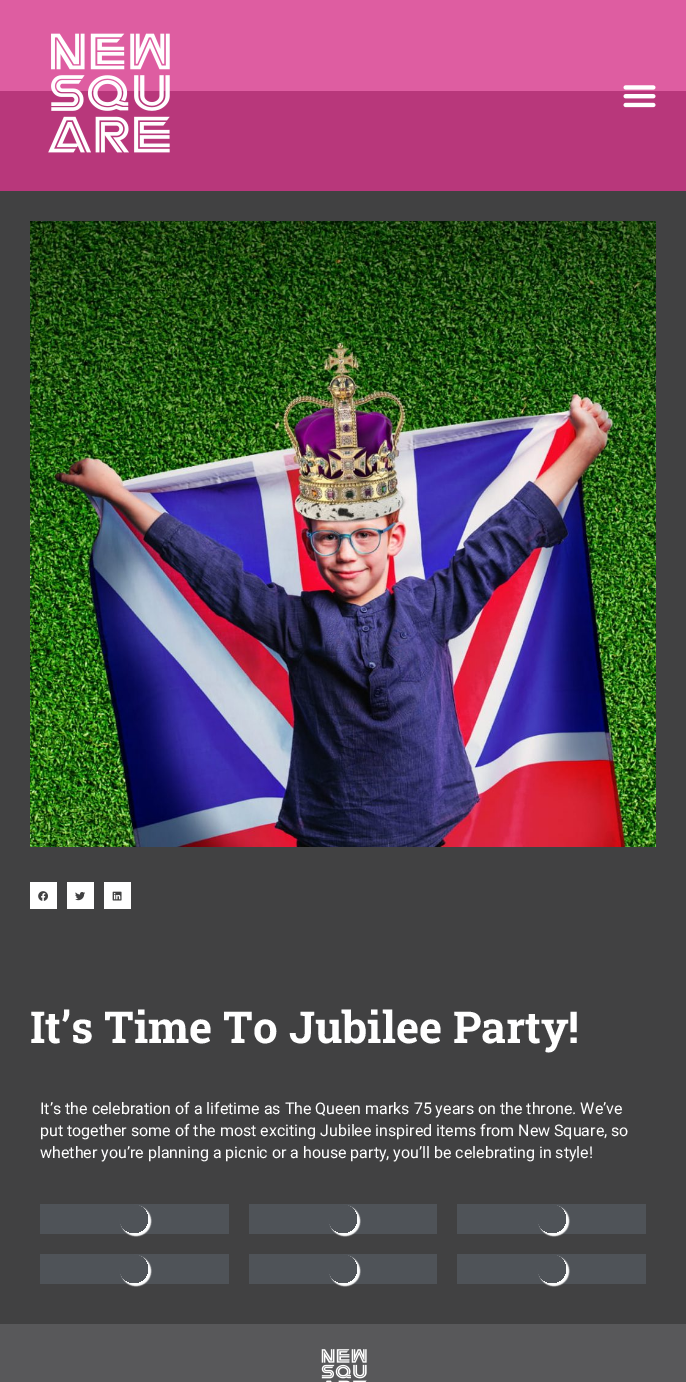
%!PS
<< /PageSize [686 1382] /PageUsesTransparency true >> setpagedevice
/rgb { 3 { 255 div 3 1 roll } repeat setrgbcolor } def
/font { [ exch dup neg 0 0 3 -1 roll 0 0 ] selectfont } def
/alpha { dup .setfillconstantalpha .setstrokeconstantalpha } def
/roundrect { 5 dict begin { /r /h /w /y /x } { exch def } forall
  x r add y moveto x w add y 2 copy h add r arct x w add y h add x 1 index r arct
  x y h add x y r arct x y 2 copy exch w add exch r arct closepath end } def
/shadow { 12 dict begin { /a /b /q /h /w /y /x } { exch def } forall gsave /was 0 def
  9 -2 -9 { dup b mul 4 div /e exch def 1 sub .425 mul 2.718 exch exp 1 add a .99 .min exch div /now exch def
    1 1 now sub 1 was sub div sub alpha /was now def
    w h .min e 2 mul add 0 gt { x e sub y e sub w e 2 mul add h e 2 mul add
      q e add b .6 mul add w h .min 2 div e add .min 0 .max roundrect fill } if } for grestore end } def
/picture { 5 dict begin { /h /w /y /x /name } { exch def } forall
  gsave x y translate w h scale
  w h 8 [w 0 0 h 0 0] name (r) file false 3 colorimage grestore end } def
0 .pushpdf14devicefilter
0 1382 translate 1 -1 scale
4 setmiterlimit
222 93 161 rgb
0 0 686 1382 rectfill
184 55 123 rgb
0 91 686 100 rectfill
(img/1.rgb) 48 33 122 120 picture
(img/2.rgb) 623 85 33 23 picture
65 65 66 rgb
0 191 686 1133 rectfill
(img/3.rgb) 30 221 626 626 picture
255 255 255 rgb
30 882 27 27 rectfill
(img/4.rgb) 38 891 10 10 picture
67 882 27 27 rectfill
(img/5.rgb) 75 892 10 9 picture
104 882 27 27 rectfill
(img/6.rgb) 112 891 10 10 picture
79 83 88 rgb
40 1204 189 30 rectfill
gsave
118 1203 moveto 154 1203 lineto 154 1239 lineto 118 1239 lineto closepath 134 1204 moveto 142.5 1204 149 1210.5 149 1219 curveto 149 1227.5 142.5 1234 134 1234 curveto 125.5 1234 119 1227.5 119 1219 curveto 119 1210.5 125.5 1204 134 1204 curveto closepath eoclip newpath
255 255 255 rgb
121 1206 30 30 15 0.5 1 shadow
grestore
249 1204 188 30 rectfill
gsave
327 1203 moveto 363 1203 lineto 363 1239 lineto 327 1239 lineto closepath 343 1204 moveto 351.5 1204 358 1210.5 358 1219 curveto 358 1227.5 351.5 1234 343 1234 curveto 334.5 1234 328 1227.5 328 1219 curveto 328 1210.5 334.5 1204 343 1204 curveto closepath eoclip newpath
255 255 255 rgb
330 1206 30 30 15 0.5 1 shadow
grestore
457 1204 189 30 rectfill
gsave
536 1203 moveto 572 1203 lineto 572 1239 lineto 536 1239 lineto closepath 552 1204 moveto 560.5 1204 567 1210.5 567 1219 curveto 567 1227.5 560.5 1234 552 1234 curveto 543.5 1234 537 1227.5 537 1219 curveto 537 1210.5 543.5 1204 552 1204 curveto closepath eoclip newpath
255 255 255 rgb
539 1206 30 30 15 0.5 1 shadow
grestore
40 1254 189 30 rectfill
gsave
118 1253 moveto 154 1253 lineto 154 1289 lineto 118 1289 lineto closepath 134 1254 moveto 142.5 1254 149 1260.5 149 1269 curveto 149 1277.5 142.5 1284 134 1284 curveto 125.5 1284 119 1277.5 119 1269 curveto 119 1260.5 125.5 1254 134 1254 curveto closepath eoclip newpath
255 255 255 rgb
121 1256 30 30 15 0.5 1 shadow
grestore
249 1254 188 30 rectfill
gsave
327 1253 moveto 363 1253 lineto 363 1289 lineto 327 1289 lineto closepath 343 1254 moveto 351.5 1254 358 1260.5 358 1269 curveto 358 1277.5 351.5 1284 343 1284 curveto 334.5 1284 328 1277.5 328 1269 curveto 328 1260.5 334.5 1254 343 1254 curveto closepath eoclip newpath
255 255 255 rgb
330 1256 30 30 15 0.5 1 shadow
grestore
457 1254 189 30 rectfill
gsave
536 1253 moveto 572 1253 lineto 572 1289 lineto 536 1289 lineto closepath 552 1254 moveto 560.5 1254 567 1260.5 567 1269 curveto 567 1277.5 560.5 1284 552 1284 curveto 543.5 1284 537 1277.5 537 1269 curveto 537 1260.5 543.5 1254 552 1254 curveto closepath eoclip newpath
255 255 255 rgb
539 1256 30 30 15 0.5 1 shadow
grestore
88 88 90 rgb
0 1324 686 58 rectfill
(img/7.rgb) 321 1349 46 33 picture
/RobotoSlab-Bold 44 font
255 255 255 rgb
30 1043 moveto (It’s Time To Jubilee Party!) show
/Roboto-Regular 16 font
[
  [(It’s the celebration of a lifetime as The Queen marks 75 years on the throne. We’ve) 40 1114]
  [(put together some of the most exciting Jubilee inspired items from New Square, so) 40 1136]
  [(whether you’re planning a picnic or a house party, you’ll be celebrating in style!) 40 1158]
] { aload pop moveto show } forall
.poppdf14devicefilter showpage
